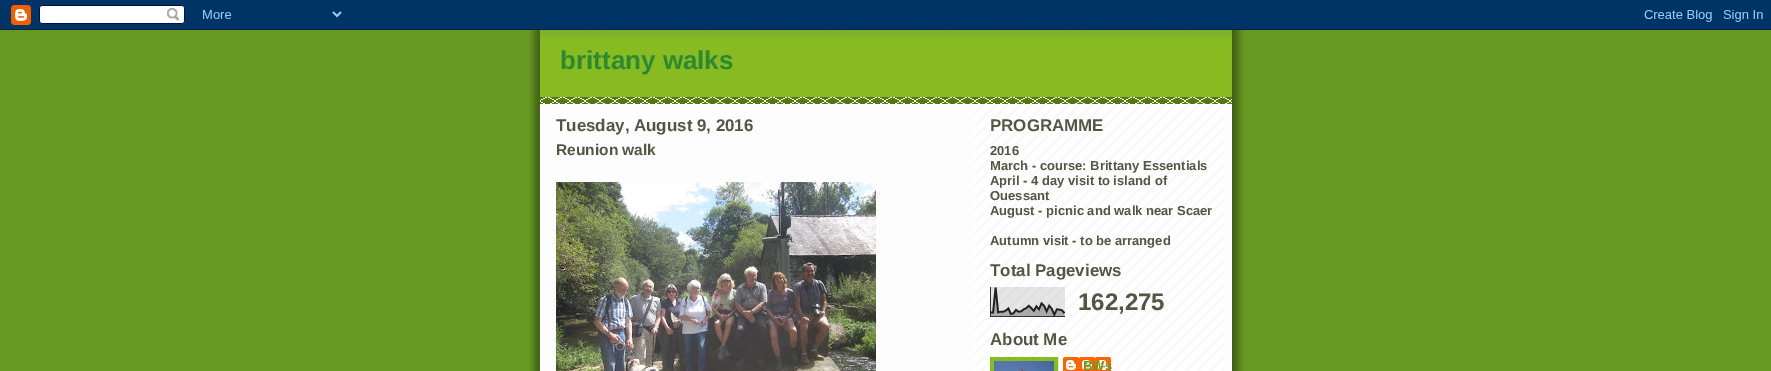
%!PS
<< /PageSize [1771 371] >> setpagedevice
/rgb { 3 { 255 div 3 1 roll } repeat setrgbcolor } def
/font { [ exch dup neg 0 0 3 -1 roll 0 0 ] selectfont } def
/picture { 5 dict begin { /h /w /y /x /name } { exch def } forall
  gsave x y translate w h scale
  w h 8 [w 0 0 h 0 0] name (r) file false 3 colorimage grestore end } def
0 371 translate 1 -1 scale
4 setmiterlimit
102 153 34 rgb
0 0 1771 371 rectfill
(img/1.rgb) 529 30 715 341 picture
(img/2.rgb) 0 0 1771 30 picture
255 255 255 rgb
540 104 1 267 rectfill
(img/3.rgb) 974 104 250 267 picture
136 187 34 rgb
540 38 692 59 rectfill
(img/4.rgb) 540 97 692 7 picture
(img/5.rgb) 540 30 692 8 picture
(img/6.rgb) 556 182 320 189 picture
(img/7.rgb) 990 287 75 30 picture
4 setlinewidth
992 359 64 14 rectstroke
(img/8.rgb) 994 361 60 10 picture
(img/9.rgb) 1063 357 48 14 picture
/LiberationSans-Bold 26 font
45 137 48 rgb
560 69 moveto (brittany walks) show
gsave
556 104 400 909 rectclip
/LiberationSans-Bold 16.9 font
85 85 68 rgb
556 131 moveto (Tuesday, August 9, 2016) show
grestore
/LiberationSans-Bold 15.5 font
85 85 68 rgb
556 155 moveto (Reunion walk) show
/LiberationSans-Bold 16.9 font
990 131 moveto (PROGRAMME) show
/LiberationSans-Bold 13 font
[
  [(2016) 990 155]
  [(March - course: Brittany Essentials) 990 170]
  [(April - 4 day visit to island of) 990 185]
  [(Ouessant) 990 200]
  [(August - picnic and walk near Scaer) 990 215]
  [(Autumn visit - to be arranged) 990 245]
] { aload pop moveto show } forall
gsave
990 104 226 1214 rectclip
/LiberationSans-Bold 16.9 font
990 276 moveto (Total Pageviews) show
grestore
/LiberationSans-Bold 24 font
1078 310 moveto (162,275) show
/LiberationSans-Bold 16.9 font
990 345 moveto (About Me) show
/LiberationSans-Bold 13 font
102 153 34 rgb
1083 370 moveto (BWs) show
showpage
